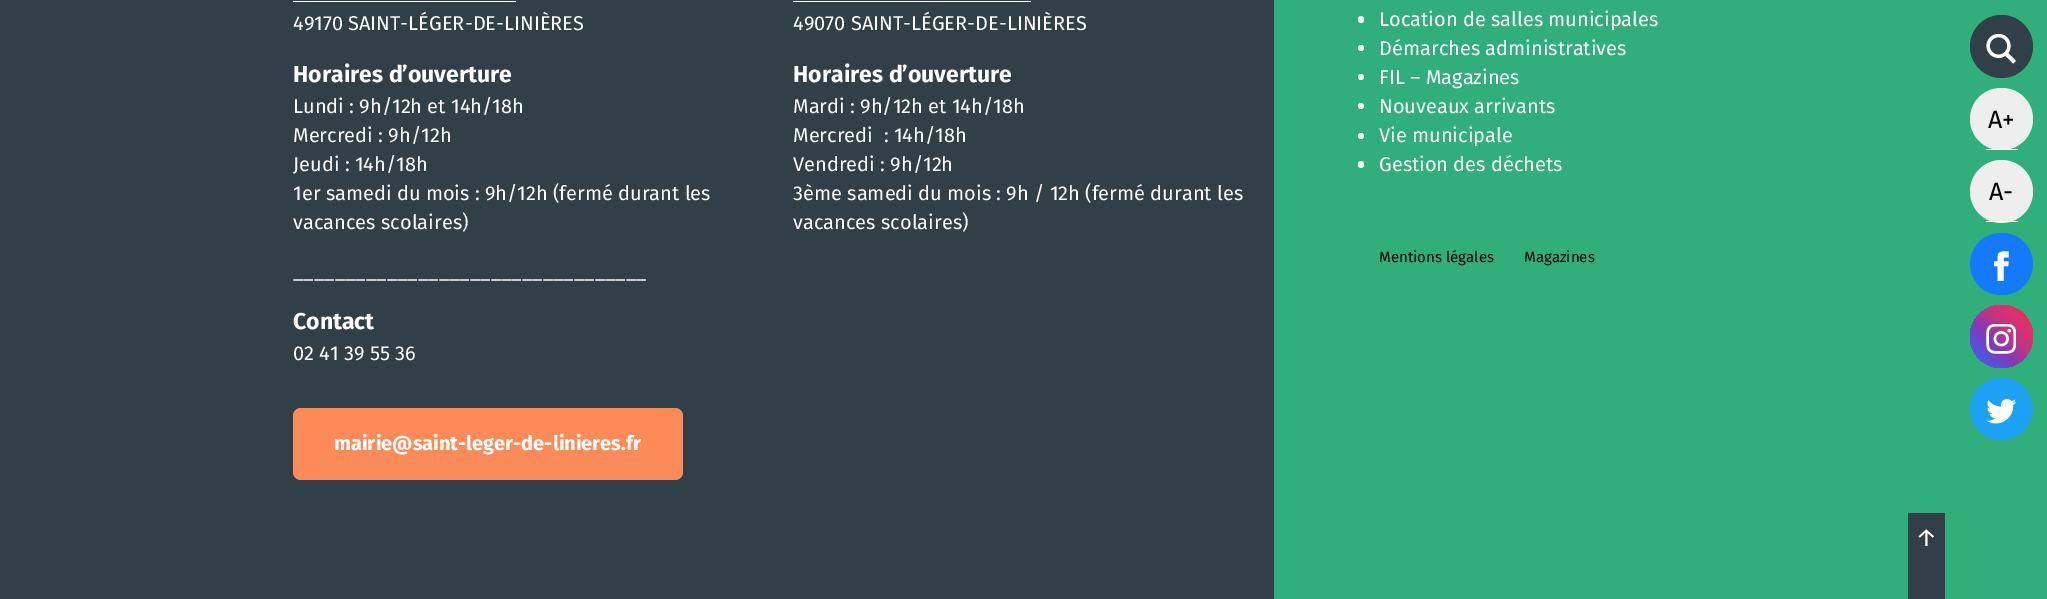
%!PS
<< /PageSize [2047 599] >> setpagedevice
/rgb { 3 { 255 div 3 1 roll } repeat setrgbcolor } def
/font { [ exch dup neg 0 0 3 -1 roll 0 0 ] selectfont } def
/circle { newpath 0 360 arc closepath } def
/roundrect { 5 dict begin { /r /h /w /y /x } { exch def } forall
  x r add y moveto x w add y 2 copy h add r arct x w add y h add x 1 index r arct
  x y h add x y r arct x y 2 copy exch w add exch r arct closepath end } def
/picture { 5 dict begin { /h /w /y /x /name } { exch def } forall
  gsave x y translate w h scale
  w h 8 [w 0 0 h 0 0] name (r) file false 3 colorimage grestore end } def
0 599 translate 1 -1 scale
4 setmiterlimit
48 175 122 rgb
0 0 2047 599 rectfill
49 63 72 rgb
0 0 1274 599 rectfill
255 255 255 rgb
293 1 223 1 rectfill
253 139 89 rgb
293 408 390 72 8 roundrect fill
255 255 255 rgb
793 1 238 1 rectfill
1358 16 6 7 3 roundrect fill
1361 48 3 circle fill
1361 77 3 circle fill
1361 106 3 circle fill
1361 136 3 circle fill
1358 161 6 7 3 roundrect fill
49 63 72 rgb
2001.5 46.5 31.5 circle fill
(img/1.rgb) 1986 34 30 30 picture
238 238 238 rgb
1970 88 63 62 31 roundrect fill
255 255 255 rgb
1986 149 32 1 rectfill
238 238 238 rgb
2001.5 191.5 31.5 circle fill
255 255 255 rgb
1986 221 32 1 rectfill
20 121 251 rgb
1970 233 63 62 31 roundrect fill
(img/2.rgb) 1994 251 15 30 picture
gsave 2001.5 336.5 31.5 circle clip newpath
<< /ShadingType 2 /ColorSpace /DeviceRGB /Coords [1970 368 2033 305] /Extend [true true] /Function << /FunctionType 3 /Domain [0 1] /Functions [<< /FunctionType 2 /Domain [0 1] /C0 [0.251 0.365 0.902] /C1 [0.345 0.318 0.859] /N 1 >> << /FunctionType 2 /Domain [0 1] /C0 [0.345 0.318 0.859] /C1 [0.514 0.227 0.706] /N 1 >> << /FunctionType 2 /Domain [0 1] /C0 [0.514 0.227 0.706] /C1 [0.757 0.208 0.518] /N 1 >> << /FunctionType 2 /Domain [0 1] /C0 [0.757 0.208 0.518] /C1 [0.882 0.188 0.424] /N 1 >> << /FunctionType 2 /Domain [0 1] /C0 [0.882 0.188 0.424] /C1 [0.992 0.114 0.114] /N 1 >>] /Bounds [0.2 0.4 0.6 0.8] /Encode [0 1 0 1 0 1 0 1 0 1] >> >> shfill grestore
(img/3.rgb) 1986 324 30 30 picture
29 161 242 rgb
1970 378 63 62 31 roundrect fill
(img/4.rgb) 1986 399 30 25 picture
49 63 72 rgb
1908 513 37 86 rectfill
/FiraSans-Regular 20 font
255 255 255 rgb
293 30 moveto (49170 SAINT-LÉGER-DE-LINIÈRES) show
/FiraSans-Bold 23 font
293 82 moveto (Horaires d’ouverture) show
/FiraSans-Regular 20 font
[
  [(Lundi : 9h/12h et 14h/18h) 293 113]
  [(Mercredi : 9h/12h) 293 142]
  [(Jeudi : 14h/18h) 293 171]
  [(1er samedi du mois : 9h/12h \(fermé durant les) 293 200]
  [(vacances scolaires\)) 293 229]
  [(__________________________________) 293 278]
] { aload pop moveto show } forall
/FiraSans-Bold 23 font
293 329 moveto (Contact) show
/FiraSans-Regular 20 font
293 360 moveto (02 41 39 55 36) show
/FiraSans-Bold 20 font
334 450 moveto (mairie@saint-leger-de-linieres.fr) show
/FiraSans-Regular 20 font
793 30 moveto (49070 SAINT-LÉGER-DE-LINIÈRES) show
/FiraSans-Bold 23 font
793 82 moveto (Horaires d’ouverture) show
/FiraSans-Regular 20 font
[
  [(Mardi : 9h/12h et 14h/18h) 793 113]
  [(Mercredi  : 14h/18h) 793 142]
  [(Vendredi : 9h/12h) 793 171]
  [(3ème samedi du mois : 9h / 12h \(fermé durant les) 793 200]
  [(vacances scolaires\)) 793 229]
  [(Location de salles municipales) 1379 26]
  [(Démarches administratives) 1379 55]
  [(FIL – Magazines) 1379 84]
  [(Nouveaux arrivants) 1379 113]
  [(Vie municipale) 1379 142]
  [(Gestion des déchets) 1379 171]
] { aload pop moveto show } forall
/FiraSans-Regular 15 font
0 0 0 rgb
1379 262 moveto (Mentions légales) show
1524 262 moveto (Magazines) show
/FiraSans-Regular 25 font
1988 128 moveto (A+) show
1989 200 moveto (A-) show
255 255 255 rgb
1915 546 moveto (↑) show
showpage
